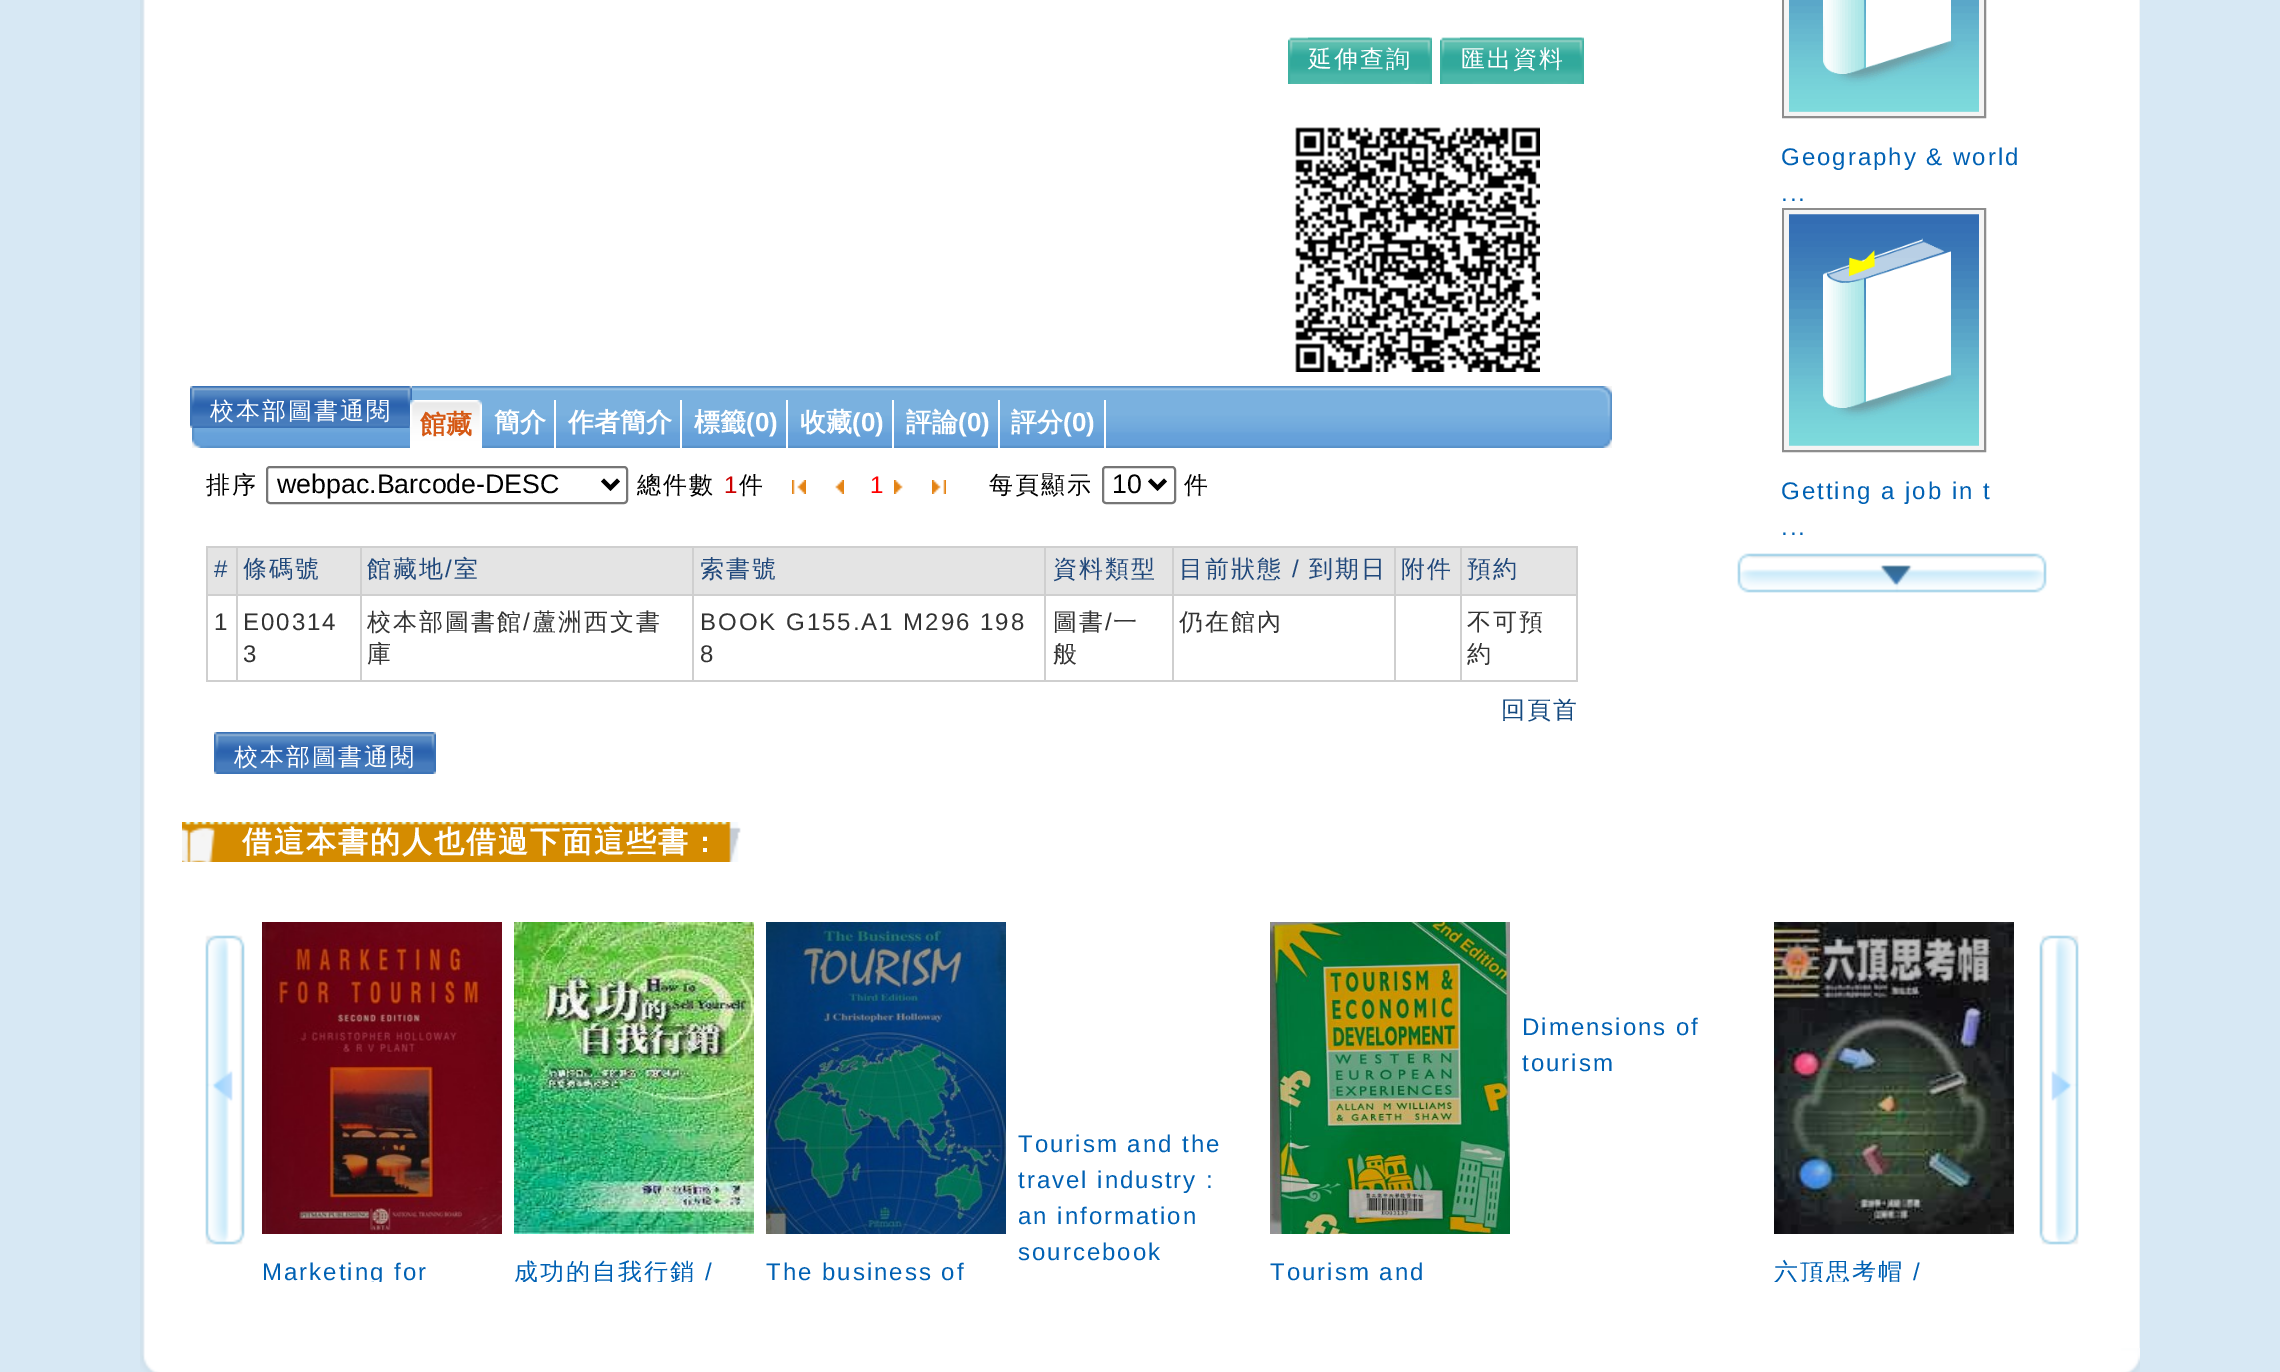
%!PS
<< /PageSize [2280 1372] >> setpagedevice
/rgb { 3 { 255 div 3 1 roll } repeat setrgbcolor } def
/font { [ exch dup neg 0 0 3 -1 roll 0 0 ] selectfont } def
/roundrect { 5 dict begin { /r /h /w /y /x } { exch def } forall
  x r add y moveto x w add y 2 copy h add r arct x w add y h add x 1 index r arct
  x y h add x y r arct x y 2 copy exch w add exch r arct closepath end } def
/picture { 5 dict begin { /h /w /y /x /name } { exch def } forall
  gsave x y translate w h scale
  w h 8 [w 0 0 h 0 0] name (r) file false 3 colorimage grestore end } def
0 1372 translate 1 -1 scale
4 setmiterlimit
215 232 244 rgb
0 0 2280 1372 rectfill
(img/1.rgb) 140 0 2000 1348 picture
(img/2.rgb) 1288 37 144 47 picture
(img/3.rgb) 1308 37 124 47 picture
(img/2.rgb) 1440 37 144 47 picture
(img/3.rgb) 1460 37 124 47 picture
(img/4.rgb) 1295 127 245 245 picture
(img/7.rgb) 192 386 1420 62 picture
(img/5.rgb) 190 386 29 42 picture
(img/6.rgb) 219 386 193 42 picture
(img/8.rgb) 410 400 72 48 picture
(img/9.rgb) 410 400 5 27 picture
[
  [554 400 2 48 255 255 255]
  [680 400 2 48 255 255 255]
  [786 400 2 48 255 255 255]
  [892 400 2 48 255 255 255]
  [998 400 2 48 255 255 255]
  [1104 400 2 48 255 255 255]
] { aload pop rgb rectfill } forall
118 118 118 rgb
2 setlinewidth
267 467 360 36 3 roundrect stroke
0 0 0 rgb
4 setlinewidth
602.5 480 moveto 610.5 488 lineto 618.5 480 lineto stroke
(img/10.rgb) 792 480 14 14 picture
(img/11.rgb) 835 480 9 14 picture
(img/12.rgb) 894 480 9 14 picture
(img/13.rgb) 932 480 14 14 picture
118 118 118 rgb
2 setlinewidth
1103 467 72 36 3 roundrect stroke
0 0 0 rgb
4 setlinewidth
1149.5 480 moveto 1157.5 488 lineto 1165.5 480 lineto stroke
[
  [206 546 1372 2 207 207 207]
  [1576 546 2 136 207 207 207]
  [206 546 2 136 207 207 207]
  [208 548 28 46 228 228 228]
  [1460 680 118 2 207 207 207]
  [1460 594 2 88 207 207 207]
  [1460 594 118 2 207 207 207]
  [1460 546 2 50 207 207 207]
  [1394 680 68 2 207 207 207]
  [1394 594 2 88 207 207 207]
  [1394 594 68 2 207 207 207]
  [1394 546 2 50 207 207 207]
  [1172 680 224 2 207 207 207]
  [1172 594 2 88 207 207 207]
  [1172 594 224 2 207 207 207]
  [1172 546 2 50 207 207 207]
  [1044 680 130 2 207 207 207]
  [1044 594 2 88 207 207 207]
  [1044 594 130 2 207 207 207]
  [1044 546 2 50 207 207 207]
  [692 680 354 2 207 207 207]
  [692 594 2 88 207 207 207]
  [692 594 354 2 207 207 207]
  [692 546 2 50 207 207 207]
  [360 680 334 2 207 207 207]
  [360 594 2 88 207 207 207]
  [360 594 334 2 207 207 207]
  [360 546 2 50 207 207 207]
  [236 680 126 2 207 207 207]
  [236 594 2 88 207 207 207]
  [236 594 126 2 207 207 207]
  [236 546 2 50 207 207 207]
  [206 594 32 2 207 207 207]
  [238 548 122 46 228 228 228]
  [362 548 330 46 228 228 228]
  [694 548 350 46 228 228 228]
  [1046 548 126 46 228 228 228]
  [1174 548 220 46 228 228 228]
  [1396 548 64 46 228 228 228]
  [1462 548 114 46 228 228 228]
  [206 680 32 2 207 207 207]
] { aload pop rgb rectfill } forall
(img/5.rgb) 214 732 29 42 picture
(img/6.rgb) 243 732 193 42 picture
141 141 141 rgb
2 setlinewidth
1783 -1 202 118 rectstroke
(img/14.rgb) 1784 0 200 116 picture
1783 209 202 242 rectstroke
(img/15.rgb) 1784 210 200 240 picture
(img/16.rgb) 1737 553 310 40 picture
(img/17.rgb) 182 822 559 40 picture
(img/18.rgb) 205 935 40 310 picture
(img/19.rgb) 262 922 240 312 picture
(img/20.rgb) 514 922 240 312 picture
(img/21.rgb) 766 922 240 312 picture
(img/22.rgb) 1270 922 240 312 picture
(img/23.rgb) 1774 922 240 312 picture
(img/24.rgb) 2039 935 40 310 picture
(img/25.rgb) 140 1348 2000 24 picture
/WenQuanYiZenHei-Medium 24 font
255 255 255 rgb
1308 67 moveto 2 0 (延伸查詢) ashow
1461 67 moveto 2 0 (匯出資料) ashow
210 419 moveto 2 0 (校本部圖書通閱) ashow
/WenQuanYiZenHei-Bold 26 font
213 89 21 rgb
420 433 moveto (館藏) show
255 255 255 rgb
[
  [(簡介) 494 431]
  [(作者簡介) 568 431]
  [(標籤) 694 431]
] { aload pop moveto show } forall
/LiberationSans-Bold 26 font
746 431 moveto (\(0\)) show
/WenQuanYiZenHei-Bold 26 font
800 431 moveto (收藏) show
/LiberationSans-Bold 26 font
852 431 moveto (\(0\)) show
/WenQuanYiZenHei-Bold 26 font
906 431 moveto (評論) show
/LiberationSans-Bold 26 font
958 431 moveto (\(0\)) show
/WenQuanYiZenHei-Bold 26 font
1011 431 moveto (評分) show
/LiberationSans-Bold 26 font
1063 431 moveto (\(0\)) show
/WenQuanYiZenHei-Medium 24 font
0 0 0 rgb
206 493 moveto 2 0 (排序) ashow
/LiberationSans-Regular 26.75 font
277 493 moveto (webpac.Barcode-DESC) show
/WenQuanYiZenHei-Medium 24 font
637 493 moveto 2 0 (總件數) ashow
/LiberationSans-Regular 24 font
204 0 0 rgb
724 493 moveto 2 0 (1) ashow
/WenQuanYiZenHei-Medium 24 font
0 0 0 rgb
739 493 moveto 2 0 (件) ashow
/LiberationSans-Regular 24 font
255 0 0 rgb
870 493 moveto 2 0 (1) ashow
/WenQuanYiZenHei-Medium 24 font
0 0 0 rgb
989 493 moveto 2 0 (每頁顯示) ashow
/LiberationSans-Regular 26.75 font
1112 493 moveto (10) show
/WenQuanYiZenHei-Medium 24 font
1184 493 moveto 2 0 (件) ashow
/LiberationSans-Regular 24 font
32 72 123 rgb
214 577 moveto 2 0 (#) ashow
/WenQuanYiZenHei-Medium 24 font
243 577 moveto 2 0 (條碼號) ashow
367 577 moveto 2 0 (館藏地) ashow
/LiberationSans-Regular 24 font
445 577 moveto 2 0 (/) ashow
/WenQuanYiZenHei-Medium 24 font
454 577 moveto 2 0 (室) ashow
700 577 moveto 2 0 (索書號) ashow
1053 577 moveto 2 0 (資料類型) ashow
1179 577 moveto 2 0 (目前狀態) ashow
/LiberationSans-Regular 24 font
1292 577 moveto 2 0 (/) ashow
/WenQuanYiZenHei-Medium 24 font
1309 577 moveto 2 0 (到期日) ashow
1401 577 moveto 2 0 (附件) ashow
1467 577 moveto 2 0 (預約) ashow
/LiberationSans-Regular 24 font
51 51 51 rgb
214 630 moveto 2 0 (1) ashow
243 630 moveto 2 0 (E00314) ashow
243 662 moveto 2 0 (3) ashow
/WenQuanYiZenHei-Medium 24 font
367 630 moveto 2 0 (校本部圖書館) ashow
/LiberationSans-Regular 24 font
523 630 moveto 2 0 (/) ashow
/WenQuanYiZenHei-Medium 24 font
532 630 moveto 2 0 (蘆洲西文書) ashow
367 662 moveto 2 0 (庫) ashow
/LiberationSans-Regular 24 font
700 630 moveto 2 0 (BOOK G155.A1 M296 198) ashow
700 662 moveto 2 0 (8) ashow
/WenQuanYiZenHei-Medium 24 font
1053 630 moveto 2 0 (圖書) ashow
/LiberationSans-Regular 24 font
1105 630 moveto 2 0 (/) ashow
/WenQuanYiZenHei-Medium 24 font
1113 630 moveto 2 0 (一) ashow
1053 662 moveto 2 0 (般) ashow
1179 630 moveto 2 0 (仍在館內) ashow
1467 630 moveto 2 0 (不可預) ashow
1467 662 moveto 2 0 (約) ashow
20 73 127 rgb
1501 718 moveto 2 0 (回頁首) ashow
255 255 255 rgb
234 765 moveto 2 0 (校本部圖書通閱) ashow
/LiberationSans-Regular 24 font
0 97 180 rgb
1781 165 moveto 2 0 (Geography & world) ashow
1781 201 moveto 2 0 (...) ashow
1781 499 moveto 2 0 (Getting a job in t) ashow
1781 535 moveto 2 0 (...) ashow
/WenQuanYiZenHei-Bold 30 font
255 255 255 rgb
242 852 moveto 2 0 (借這本書的人也借過下面這些書) ashow
/LiberationSans-Bold 30 font
700 852 moveto 2 0 (:) ashow
/LiberationSans-Regular 24 font
0 97 180 rgb
1522 1035 moveto 2 0 (Dimensions of) ashow
1522 1071 moveto 2 0 (tourism) ashow
1018 1152 moveto 2 0 (Tourism and the) ashow
1018 1188 moveto 2 0 (travel industry :) ashow
1018 1224 moveto 2 0 (an information) ashow
1018 1260 moveto 2 0 (sourcebook) ashow
gsave
262 922 1760 360 rectclip
262 1280 moveto 2 0 (Marketing for) ashow
/WenQuanYiZenHei-Medium 24 font
514 1280 moveto 2 0 (成功的自我行銷) ashow
grestore
705 1280 moveto 2 0 (/) ashow
766 1280 moveto 2 0 (The business of) ashow
1270 1280 moveto 2 0 (Tourism and) ashow
gsave
262 922 1760 360 rectclip
/WenQuanYiZenHei-Medium 24 font
1774 1280 moveto 2 0 (六頂思考帽) ashow
grestore
1913 1280 moveto 2 0 (/) ashow
showpage
